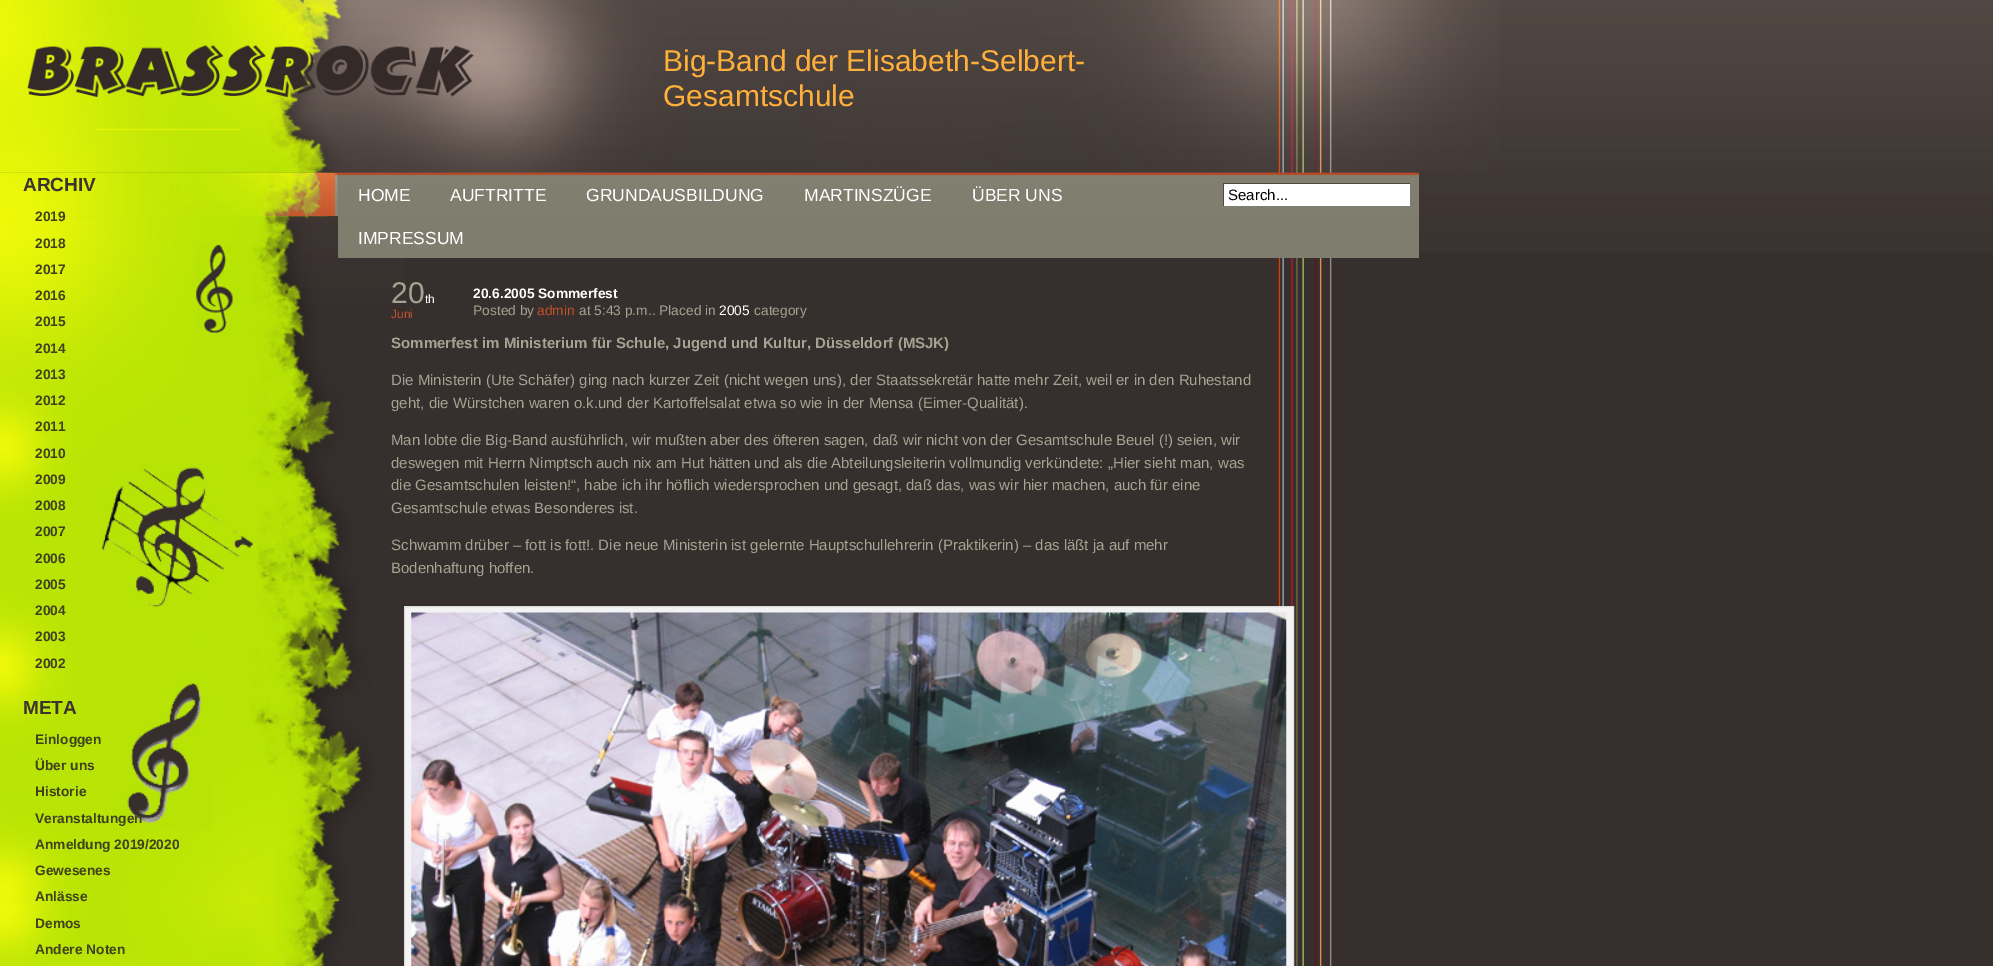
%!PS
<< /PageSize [1993 966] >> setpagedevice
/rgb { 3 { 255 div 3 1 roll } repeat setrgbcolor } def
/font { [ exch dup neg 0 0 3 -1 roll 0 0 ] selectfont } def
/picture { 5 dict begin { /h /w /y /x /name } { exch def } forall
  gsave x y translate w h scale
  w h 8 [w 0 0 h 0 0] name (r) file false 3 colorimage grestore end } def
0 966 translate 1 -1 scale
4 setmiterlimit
54 47 45 rgb
0 0 1993 966 rectfill
(img/1.rgb) 0 0 1993 252 picture
(img/2.rgb) 1278 172 54 794 picture
(img/5.rgb) 0 172 393 794 picture
(img/6.rgb) 0 172 1417 45 picture
(img/7.rgb) 0 216 404 686 picture
127 125 110 rgb
338 173 1081 85 rectfill
(img/8.rgb) 337 172 1082 45 picture
(img/3.rgb) 0 0 1500 173 picture
(img/4.rgb) 27 45 447 53 picture
[
  [1224 184 186 22 255 255 255]
  [1223 183 187 1 83 71 65]
  [1223 183 1 23 83 71 65]
] { aload pop rgb rectfill } forall
243 243 243 rgb
404.5 606.5 moveto 1293.5 606.5 lineto 1293.5 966.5 lineto 404.5 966.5 lineto closepath gsave fill grestore
221 221 221 rgb
stroke
(img/9.rgb) 411 612 876 354 picture
/LiberationSans-Regular 30 font
255 176 59 rgb
663 71 moveto (Big-Band der Elisabeth-Selbert-) show
663 106 moveto (Gesamtschule) show
/LiberationSans-Bold 19 font
58 51 48 rgb
23 191 moveto (ARCHIV) show
/LiberationSans-Bold 13.75 font
64 65 30 rgb
[
  [(2019) 35 221]
  [(2018) 35 248]
  [(2017) 35 274]
  [(2016) 35 300]
  [(2015) 35 326]
  [(2014) 35 353]
  [(2013) 35 379]
  [(2012) 35 405]
  [(2011) 35 431]
  [(2010) 35 458]
  [(2009) 35 484]
  [(2008) 35 510]
  [(2007) 35 536]
  [(2006) 35 563]
  [(2005) 35 589]
  [(2004) 35 615]
  [(2003) 35 641]
  [(2002) 35 668]
] { aload pop moveto show } forall
/LiberationSans-Bold 19 font
58 51 48 rgb
23 714 moveto (META) show
/LiberationSans-Bold 13.75 font
64 65 30 rgb
[
  [(Einloggen) 35 744]
  [(Über uns) 35 770]
  [(Historie) 35 796]
  [(Veranstaltungen) 35 823]
  [(Anmeldung 2019/2020) 35 849]
  [(Gewesenes) 35 875]
  [(Anlässe) 35 901]
  [(Demos) 35 928]
  [(Andere Noten) 35 954]
] { aload pop moveto show } forall
/LiberationSans-Regular 17.5 font
255 255 255 rgb
[
  [(HOME) 358 201]
  [(AUFTRITTE) 450 201]
  [(GRUNDAUSBILDUNG) 586 201]
  [(MARTINSZÜGE) 804 201]
  [(ÜBER UNS) 972 201]
  [(IMPRESSUM) 358 244]
] { aload pop moveto show } forall
/LiberationSans-Regular 15 font
0 0 0 rgb
1228 200 moveto (Search...) show
/LiberationSans-Regular 30 font
165 163 146 rgb
391 303 moveto (20) show
/LiberationSans-Regular 12 font
255 255 255 rgb
425 303 moveto (th) show
191 83 43 rgb
391 318 moveto (Juni) show
/LiberationSans-Bold 13.75 font
255 255 255 rgb
473 298 moveto (20.6.2005 Sommerfest) show
/LiberationSans-Regular 13.75 font
165 163 146 rgb
473 315 moveto (Posted by) show
191 83 43 rgb
537 315 moveto (admin) show
165 163 146 rgb
579 315 moveto (at 5:43 p.m.. Placed in) show
255 255 255 rgb
719 315 moveto (2005) show
165 163 146 rgb
754 315 moveto (category) show
/LiberationSans-Bold 15 font
391 348 moveto (Sommerfest im Ministerium für Schule, Jugend und Kultur, Düsseldorf \(MSJK\)) show
/LiberationSans-Regular 15 font
[
  [(Die Ministerin \(Ute Schäfer\) ging nach kurzer Zeit \(nicht wegen uns\), der Staatssekretär hatte mehr Zeit, weil er in den Ruhestand) 391 385]
  [(geht, die Würstchen waren o.k.und der Kartoffelsalat etwa so wie in der Mensa \(Eimer-Qualität\).) 391 408]
  [(Man lobte die Big-Band ausführlich, wir mußten aber des öfteren sagen, daß wir nicht von der Gesamtschule Beuel \(!\) seien, wir) 391 445]
  [(deswegen mit Herrn Nimptsch auch nix am Hut hätten und als die Abteilungsleiterin vollmundig verkündete: „Hier sieht man, was) 391 468]
  [(die Gesamtschulen leisten!“, habe ich ihr höflich wiedersprochen und gesagt, daß das, was wir hier machen, auch für eine) 391 490]
  [(Gesamtschule etwas Besonderes ist.) 391 513]
  [(Schwamm drüber – fott is fott!. Die neue Ministerin ist gelernte Hauptschullehrerin \(Praktikerin\) – das läßt ja auf mehr) 391 550]
  [(Bodenhaftung hoffen.) 391 573]
] { aload pop moveto show } forall
showpage
